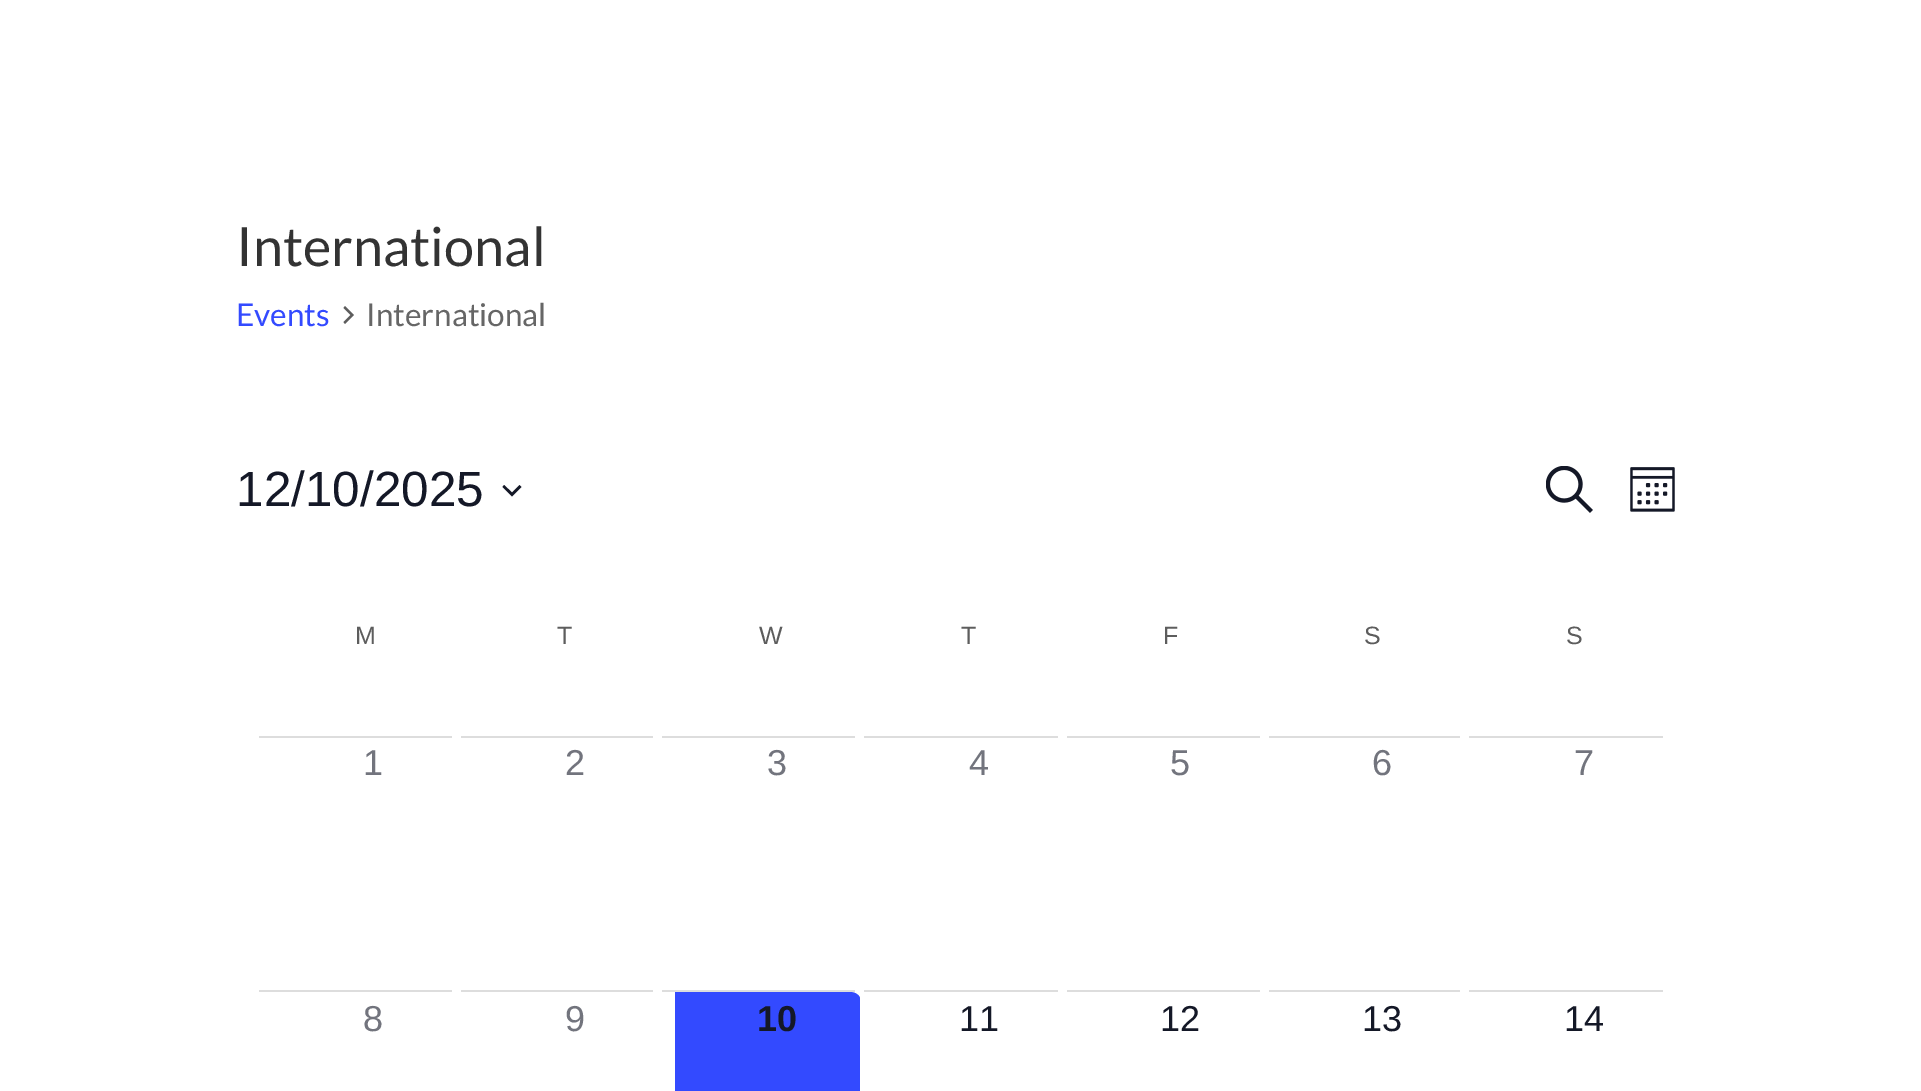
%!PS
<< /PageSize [1921 1091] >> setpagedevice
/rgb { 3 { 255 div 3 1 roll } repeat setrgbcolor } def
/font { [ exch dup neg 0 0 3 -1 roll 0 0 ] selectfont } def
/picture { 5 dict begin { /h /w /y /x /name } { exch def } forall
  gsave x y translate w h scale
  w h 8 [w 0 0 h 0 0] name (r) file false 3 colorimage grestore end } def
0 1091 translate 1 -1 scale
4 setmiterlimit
255 255 255 rgb
0 0 1921 1091 rectfill
93 93 93 rgb
343.5 308 moveto 345 306 lineto 354 315 lineto 345 324 lineto 343.5 322 lineto 350.5 315 lineto closepath fill
20 24 39 rgb
504 485 moveto 512 492.5 lineto 519.5 485 lineto 521.5 487 lineto 512 496.5 lineto 502.5 487 lineto closepath eofill
(img/1.rgb) 1546 466 47 47 picture
(img/2.rgb) 1630 467 45 45 picture
[
  [259 736 193 2 221 221 221]
  [461 736 192 2 221 221 221]
  [662 736 193 2 221 221 221]
  [864 736 194 2 221 221 221]
  [1067 736 193 2 221 221 221]
  [1269 736 191 2 221 221 221]
  [1469 736 194 2 221 221 221]
  [259 990 193 2 221 221 221]
  [461 990 192 2 221 221 221]
  [662 990 193 2 221 221 221]
] { aload pop rgb rectfill } forall
51 74 255 rgb
675 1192 moveto 675 992 lineto 850 992 lineto 855 992 860 995 860 999 curveto 860 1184 lineto 860 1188 855 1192 850 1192 curveto closepath fill
[
  [864 990 194 2 221 221 221]
  [1067 990 193 2 221 221 221]
  [1269 990 191 2 221 221 221]
  [1469 990 194 2 221 221 221]
] { aload pop rgb rectfill } forall
/Lato-Regular 54 font
51 51 51 rgb
236 266 moveto (International) show
/Lato-Regular 31.5 font
51 74 255 rgb
236 326 moveto (Events) show
102 102 102 rgb
366 326 moveto (International) show
/LiberationSans-Regular 49.5 font
20 24 39 rgb
236 506 moveto (12/10/2025) show
/LiberationSans-Regular 25 font
93 93 93 rgb
[
  [(M) 355 644]
  [(T) 557 644]
  [(W) 759 644]
  [(T) 961 644]
  [(F) 1163 644]
  [(S) 1364 644]
  [(S) 1566 644]
] { aload pop moveto show } forall
/LiberationSans-Regular 36 font
114 116 125 rgb
[
  [(1) 363 775]
  [(2) 565 775]
  [(3) 767 775]
  [(4) 969 775]
  [(5) 1170 775]
  [(6) 1372 775]
  [(7) 1574 775]
  [(8) 363 1031]
  [(9) 565 1031]
] { aload pop moveto show } forall
/LiberationSans-Bold 36 font
20 24 39 rgb
757 1031 moveto (10) show
/LiberationSans-Regular 36 font
[
  [(11) 959 1031]
  [(12) 1160 1031]
  [(13) 1362 1031]
  [(14) 1564 1031]
] { aload pop moveto show } forall
showpage
